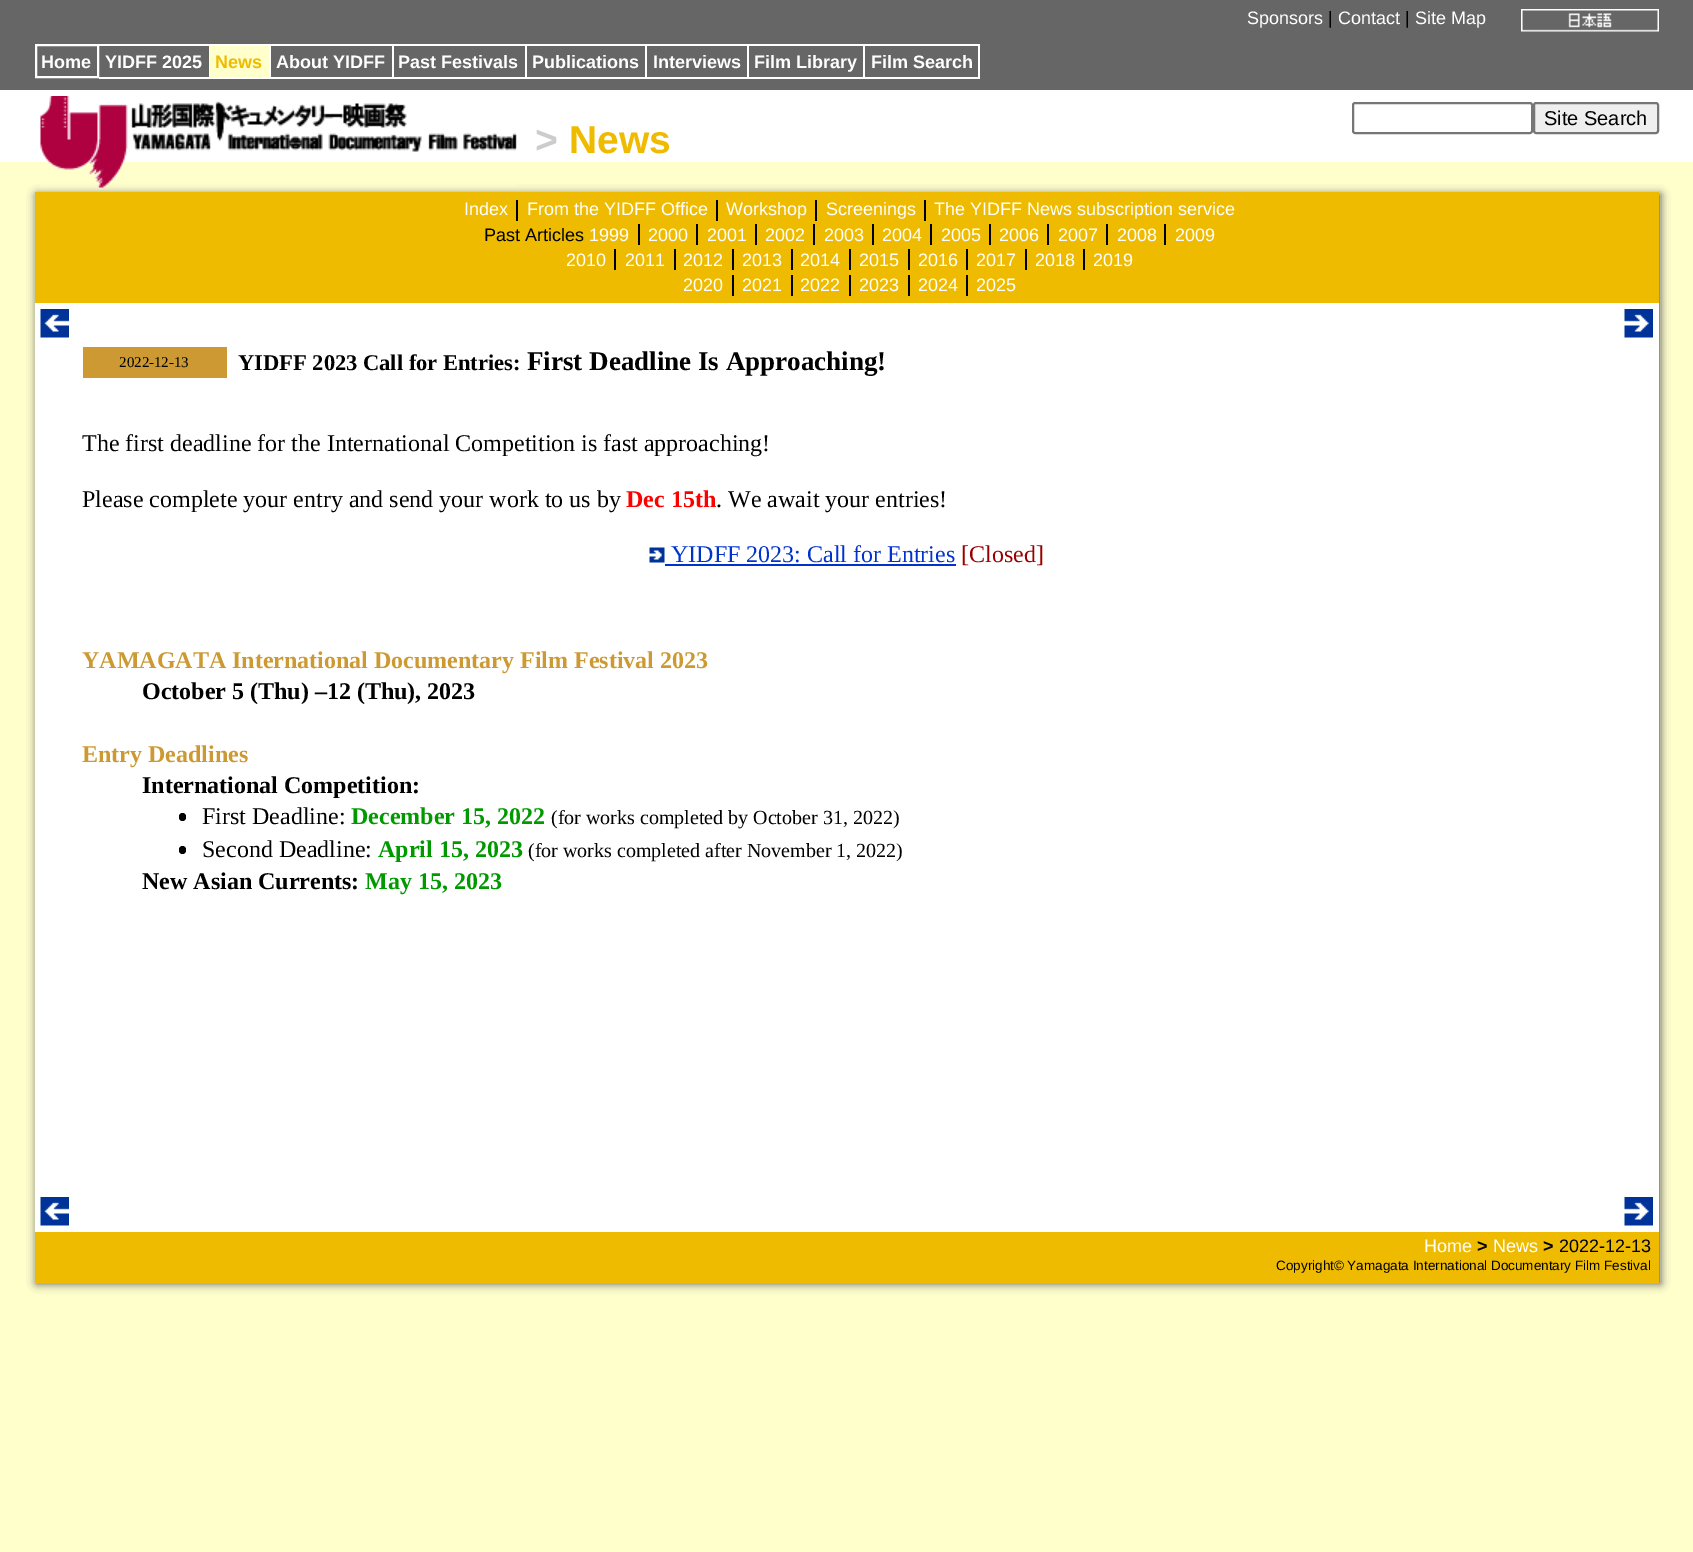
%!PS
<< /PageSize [1693 1552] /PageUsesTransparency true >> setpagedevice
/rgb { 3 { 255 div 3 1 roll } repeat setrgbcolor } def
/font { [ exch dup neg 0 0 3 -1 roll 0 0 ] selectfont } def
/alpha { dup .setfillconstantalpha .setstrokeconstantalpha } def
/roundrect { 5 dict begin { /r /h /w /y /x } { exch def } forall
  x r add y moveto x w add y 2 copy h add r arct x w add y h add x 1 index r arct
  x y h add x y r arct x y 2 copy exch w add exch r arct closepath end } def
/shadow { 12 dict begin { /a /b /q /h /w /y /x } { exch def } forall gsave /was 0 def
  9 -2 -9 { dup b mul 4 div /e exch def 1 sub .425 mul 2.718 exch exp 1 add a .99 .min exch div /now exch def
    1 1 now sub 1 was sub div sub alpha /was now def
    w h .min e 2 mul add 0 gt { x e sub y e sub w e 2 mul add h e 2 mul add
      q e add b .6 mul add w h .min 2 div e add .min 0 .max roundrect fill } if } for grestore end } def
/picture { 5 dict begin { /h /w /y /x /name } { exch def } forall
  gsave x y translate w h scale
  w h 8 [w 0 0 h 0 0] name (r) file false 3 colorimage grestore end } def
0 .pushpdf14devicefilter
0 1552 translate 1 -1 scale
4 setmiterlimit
255 255 204 rgb
0 0 1693 1552 rectfill
102 102 102 rgb
0 0 1693 90 rectfill
(img/1.rgb) 1521 9 138 23 picture
255 255 255 rgb
2 setlinewidth
36 45 62 32 rectstroke
[
  [99 44 171 2 255 255 255]
  [209 44 1 34 255 255 255]
  [99 77 111 2 255 255 255]
  [210 46 59 31 255 255 204]
  [269 44 2 34 255 255 255]
  [210 77 60 2 255 255 255]
  [270 44 123 2 255 255 255]
  [392 44 2 34 255 255 255]
  [270 77 123 2 255 255 255]
  [393 44 471 2 255 255 255]
  [525 44 2 34 255 255 255]
  [393 77 134 2 255 255 255]
  [645 44 2 34 255 255 255]
  [527 77 120 2 255 255 255]
  [747 44 2 34 255 255 255]
  [647 77 102 2 255 255 255]
  [863 44 2 34 255 255 255]
  [749 77 115 2 255 255 255]
  [864 44 116 2 255 255 255]
  [978 44 2 34 255 255 255]
  [864 77 116 2 255 255 255]
  [0 90 1693 72 255 255 255]
] { aload pop rgb rectfill } forall
102 102 102 rgb
36 194 1625 1090 0 4.5 1 shadow
(img/2.rgb) 40 96 477 92 picture
118 118 118 rgb
1353 103 179 30 2 roundrect stroke
239 239 239 rgb
1534 103 124 30 2 roundrect gsave fill grestore
118 118 118 rgb
stroke
[
  [35 192 1624 1091 238 187 0]
  [516 200 2 21 0 0 0]
  [716 200 2 21 0 0 0]
  [815 200 2 21 0 0 0]
  [924 200 2 21 0 0 0]
  [638 224 2 21 0 0 0]
  [696 224 2 21 0 0 0]
  [755 224 2 21 0 0 0]
  [813 224 2 21 0 0 0]
  [872 224 2 21 0 0 0]
  [930 224 2 21 0 0 0]
  [989 224 2 21 0 0 0]
  [1047 224 2 21 0 0 0]
  [1106 224 2 21 0 0 0]
  [1164 224 2 21 0 0 0]
  [614 249 2 21 0 0 0]
  [674 249 2 21 0 0 0]
  [732 249 2 21 0 0 0]
  [791 249 2 21 0 0 0]
  [849 249 2 21 0 0 0]
  [908 249 2 21 0 0 0]
  [966 249 2 21 0 0 0]
  [1025 249 2 21 0 0 0]
  [1083 249 2 21 0 0 0]
  [732 275 2 21 0 0 0]
  [791 275 2 21 0 0 0]
  [849 275 2 21 0 0 0]
  [908 275 2 21 0 0 0]
  [966 275 2 21 0 0 0]
  [35 303 1624 929 255 255 255]
] { aload pop rgb rectfill } forall
(img/3.rgb) 40 309 29 29 picture
(img/4.rgb) 1624 309 29 29 picture
204 153 51 rgb
83 347 144 31 rectfill
(img/5.rgb) 649 547 16 16 picture
0 51 204 rgb
665 564 291 2 rectfill
0 0 0 rgb
179 813 7 8 3.5 roundrect fill
179 846 7 8 3.5 roundrect fill
(img/3.rgb) 40 1197 29 29 picture
(img/4.rgb) 1624 1197 29 29 picture
/LiberationSans-Regular 18 font
255 255 255 rgb
1247 24 moveto (Sponsors) show
0 0 0 rgb
1328 24 moveto (|) show
255 255 255 rgb
1338 24 moveto (Contact) show
0 0 0 rgb
1405 24 moveto (|) show
255 255 255 rgb
1415 24 moveto (Site Map) show
/LiberationSans-Bold 18 font
41 68 moveto (Home) show
105 68 moveto (YIDFF 2025) show
238 187 0 rgb
215 68 moveto (News) show
255 255 255 rgb
[
  [(About YIDFF) 276 68]
  [(Past Festivals) 398 68]
  [(Publications) 532 68]
  [(Interviews) 653 68]
  [(Film Library) 754 68]
  [(Film Search) 871 68]
] { aload pop moveto show } forall
/LiberationSans-Regular 20 font
0 0 0 rgb
1544 125 moveto (Site Search) show
/LiberationSans-Bold 39 font
204 204 204 rgb
535 153 moveto (>) show
238 187 0 rgb
569 153 moveto (News) show
/LiberationSans-Regular 18 font
255 255 255 rgb
[
  [(Index) 464 215]
  [(From the YIDFF Office) 527 215]
  [(Workshop) 726 215]
  [(Screenings) 826 215]
  [(The YIDFF News subscription service) 934 215]
] { aload pop moveto show } forall
0 0 0 rgb
484 241 moveto (Past Articles) show
255 255 255 rgb
[
  [(1999) 589 241]
  [(2000) 648 241]
  [(2001) 707 241]
  [(2002) 765 241]
  [(2003) 824 241]
  [(2004) 882 241]
  [(2005) 941 241]
  [(2006) 999 241]
  [(2007) 1058 241]
  [(2008) 1117 241]
  [(2009) 1175 241]
  [(2010) 566 266]
  [(2011) 625 266]
  [(2012) 683 266]
  [(2013) 742 266]
  [(2014) 800 266]
  [(2015) 859 266]
  [(2016) 918 266]
  [(2017) 976 266]
  [(2018) 1035 266]
  [(2019) 1093 266]
  [(2020) 683 291]
  [(2021) 742 291]
  [(2022) 800 291]
  [(2023) 859 291]
  [(2024) 918 291]
  [(2025) 976 291]
] { aload pop moveto show } forall
/LiberationSerif-Regular 15 font
0 0 0 rgb
119 367 moveto (2022-12-13) show
/LiberationSerif-Bold 22.5 font
238 370 moveto (YIDFF 2023 Call for Entries:) show
/LiberationSerif-Bold 27 font
527 370 moveto (First Deadline Is Approaching!) show
/LiberationSerif-Regular 24 font
82 451 moveto (The first deadline for the International Competition is fast approaching!) show
82 507 moveto (Please complete your entry and send your work to us by) show
/LiberationSerif-Bold 24 font
255 0 0 rgb
626 507 moveto (Dec 15th) show
/LiberationSerif-Regular 24 font
0 0 0 rgb
716 507 moveto (. We await your entries!) show
0 51 204 rgb
671 562 moveto (YIDFF 2023: Call for Entries) show
153 0 0 rgb
961 562 moveto ([Closed]) show
/LiberationSerif-Bold 24 font
204 153 51 rgb
82 668 moveto (YAMAGATA International Documentary Film Festival 2023) show
0 0 0 rgb
142 699 moveto (October 5 \(Thu\) –12 \(Thu\), 2023) show
204 153 51 rgb
82 762 moveto (Entry Deadlines) show
0 0 0 rgb
142 793 moveto (International Competition:) show
/LiberationSerif-Regular 24 font
202 824 moveto (First Deadline:) show
/LiberationSerif-Bold 24 font
0 153 0 rgb
351 824 moveto (December 15, 2022) show
/LiberationSerif-Regular 20 font
0 0 0 rgb
551 824 moveto (\(for works completed by October 31, 2022\)) show
/LiberationSerif-Regular 24 font
202 857 moveto (Second Deadline:) show
/LiberationSerif-Bold 24 font
0 153 0 rgb
378 857 moveto (April 15, 2023) show
/LiberationSerif-Regular 20 font
0 0 0 rgb
528 857 moveto (\(for works completed after November 1, 2022\)) show
/LiberationSerif-Bold 24 font
142 889 moveto (New Asian Currents:) show
0 153 0 rgb
365 889 moveto (May 15, 2023) show
/LiberationSans-Regular 18 font
255 255 255 rgb
1424 1252 moveto (Home) show
/LiberationSans-Bold 18 font
0 0 0 rgb
1477 1252 moveto (>) show
/LiberationSans-Regular 18 font
255 255 255 rgb
1493 1252 moveto (News) show
/LiberationSans-Bold 18 font
0 0 0 rgb
1543 1252 moveto (>) show
/LiberationSans-Regular 18 font
1559 1252 moveto (2022-12-13) show
/LiberationSans-Regular 13.5 font
1276 1270 moveto (Copyright© Yamagata International Documentary Film Festival) show
.poppdf14devicefilter showpage
